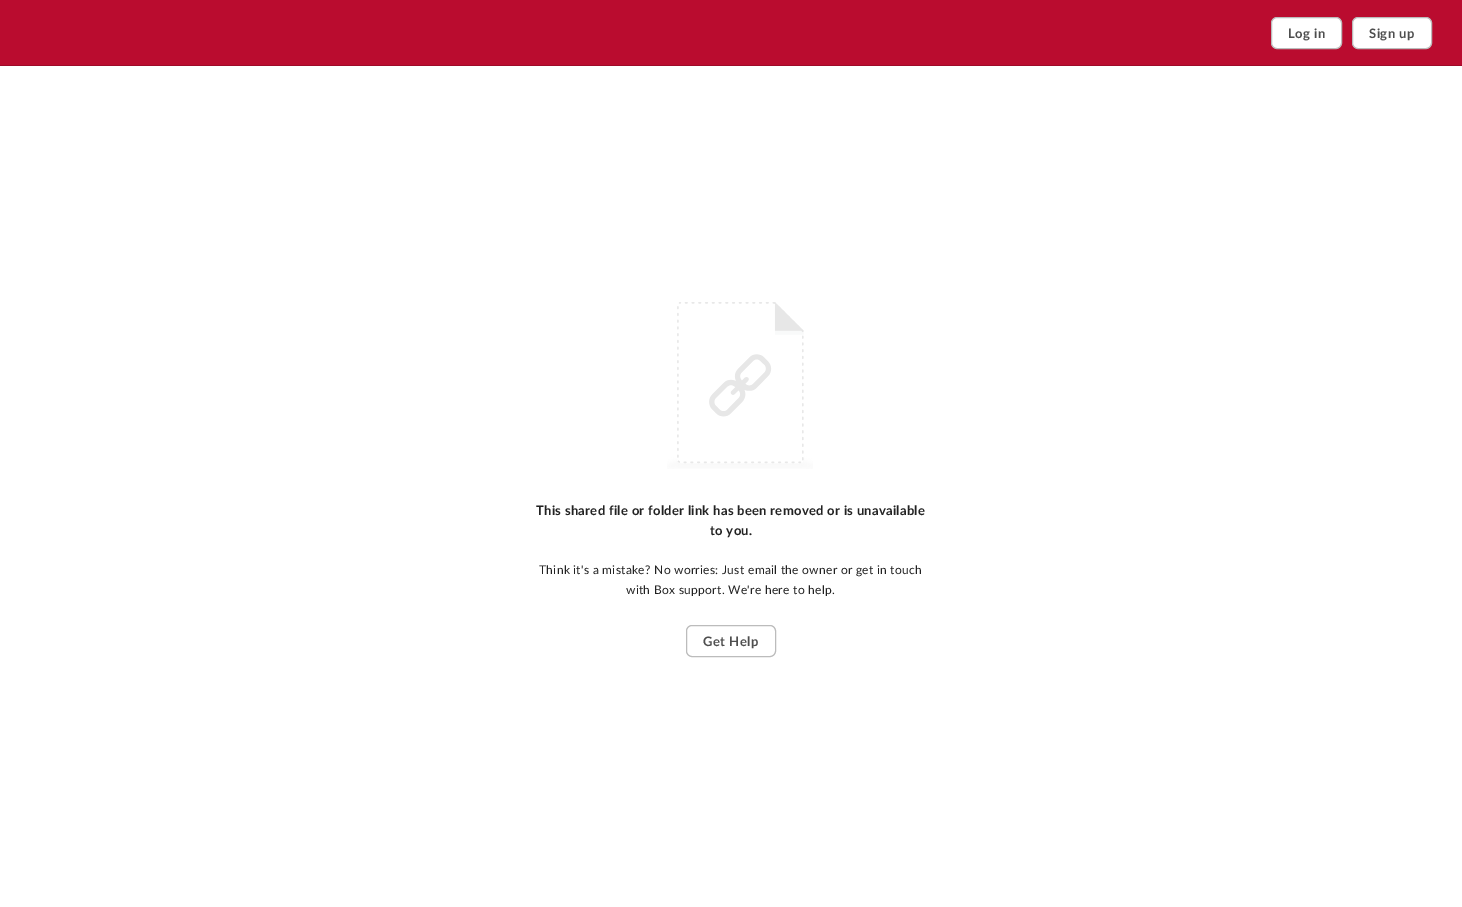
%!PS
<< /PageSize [1462 907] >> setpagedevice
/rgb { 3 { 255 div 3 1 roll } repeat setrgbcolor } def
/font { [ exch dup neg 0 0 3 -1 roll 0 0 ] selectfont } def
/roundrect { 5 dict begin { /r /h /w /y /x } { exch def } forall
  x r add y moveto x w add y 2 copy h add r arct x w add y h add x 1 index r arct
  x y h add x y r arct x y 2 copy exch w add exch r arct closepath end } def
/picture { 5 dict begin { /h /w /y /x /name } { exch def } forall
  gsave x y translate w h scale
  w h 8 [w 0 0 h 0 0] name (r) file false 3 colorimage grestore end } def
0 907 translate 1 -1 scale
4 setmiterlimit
255 255 255 rgb
0 0 1462 907 rectfill
186 12 47 rgb
0 0 1462 65 rectfill
158 10 40 rgb
0 65 1462 1 rectfill
255 255 255 rgb
1271.5 17.5 70 31 5.5 roundrect gsave fill grestore
188 188 188 rgb
stroke
255 255 255 rgb
1352.5 17.5 79 31 5.5 roundrect gsave fill grestore
188 188 188 rgb
stroke
(img/1.rgb) 667 302 146 167 picture
686.5 625.5 89 31 5.5 roundrect stroke
/Lato-Bold 13 font
78 78 78 rgb
1288 38 moveto 0.5 0 (Log in) ashow
1369 38 moveto 0.5 0 (Sign up) ashow
34 34 34 rgb
536 515 moveto 0.3 0 (This shared file or folder link has been removed or is unavailable) ashow
710 535 moveto 0.3 0 (to you.) ashow
/Lato-Regular 12 font
539 574 moveto 0.3 0 (Think it's a mistake? No worries: Just email the owner or get in touch) ashow
626 594 moveto 0.3 0 (with Box support. We're here to help.) ashow
/Lato-Bold 13 font
78 78 78 rgb
703 646 moveto 0.5 0 (Get Help) ashow
showpage
